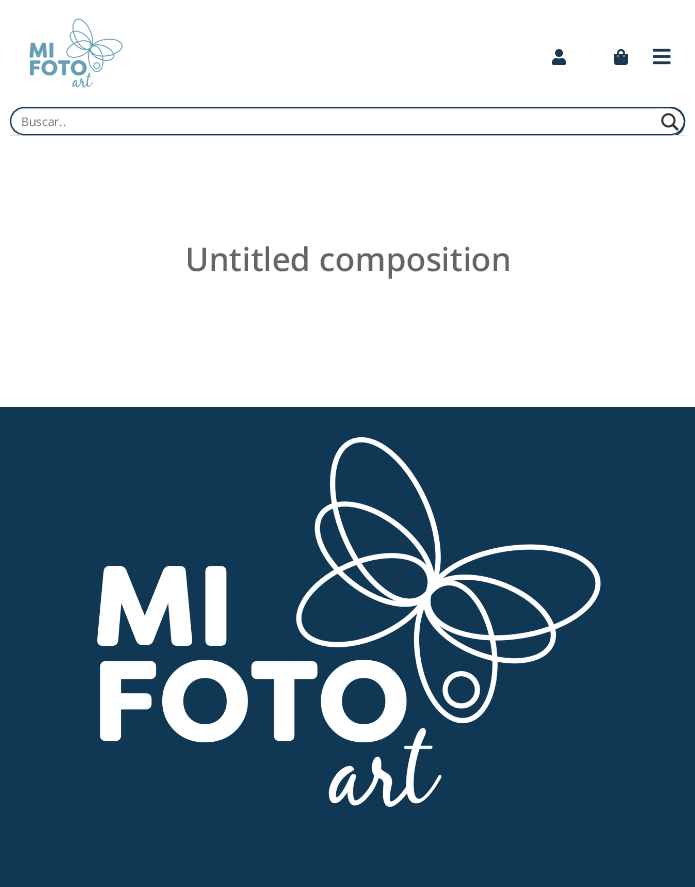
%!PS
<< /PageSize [695 887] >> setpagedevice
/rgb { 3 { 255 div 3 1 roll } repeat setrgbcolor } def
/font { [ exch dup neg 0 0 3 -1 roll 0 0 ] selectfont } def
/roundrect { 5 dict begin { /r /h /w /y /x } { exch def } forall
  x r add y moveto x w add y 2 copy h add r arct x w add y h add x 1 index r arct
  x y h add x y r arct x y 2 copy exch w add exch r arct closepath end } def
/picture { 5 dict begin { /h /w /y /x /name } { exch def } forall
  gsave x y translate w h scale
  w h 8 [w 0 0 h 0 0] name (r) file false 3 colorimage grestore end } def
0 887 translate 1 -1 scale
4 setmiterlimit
255 255 255 rgb
0 0 695 887 rectfill
(img/1.rgb) 29 18 94 70 picture
(img/2.rgb) 552 49 14 16 picture
(img/3.rgb) 614 49 14 16 picture
(img/4.rgb) 653 48 18 17 picture
228 228 228 rgb
10 135 675 1 rectfill
gsave
10 107 675 28 rectclip
247 247 247 rgb
10.5 109.5 657 29 14.5 roundrect stroke
216 216 216 rgb
10.5 107.5 657 29 14.5 roundrect stroke
255 255 255 rgb
656 108 moveto 670 108 lineto 677.5 108 684 114.5 684 122 curveto 684 129.5 677.5 136 670 136 curveto 656 136 lineto closepath fill
27 55 82 rgb
656 107 moveto 670 107 lineto 678.5 107 685 113.5 685 122 curveto 685 130.5 678.5 137 670 137 curveto 656 137 lineto closepath 656 108 moveto 670 108 lineto 677.5 108 684 114.5 684 122 curveto 684 129.5 677.5 136 670 136 curveto 656 136 lineto closepath eofill
grestore
(img/5.rgb) 661 113 18 18 picture
27 55 82 rgb
10.5 107.5 674 27 13.5 roundrect stroke
16 55 84 rgb
0 407 695 480 rectfill
(img/6.rgb) 97 437 504 370 picture
/NotoSans-Regular 12 font
125 125 125 rgb
21 126 moveto (Buscar..) show
/NotoSans-Medium 32.5 font
101 101 99 rgb
185 271 moveto (Untitled composition) show
showpage
